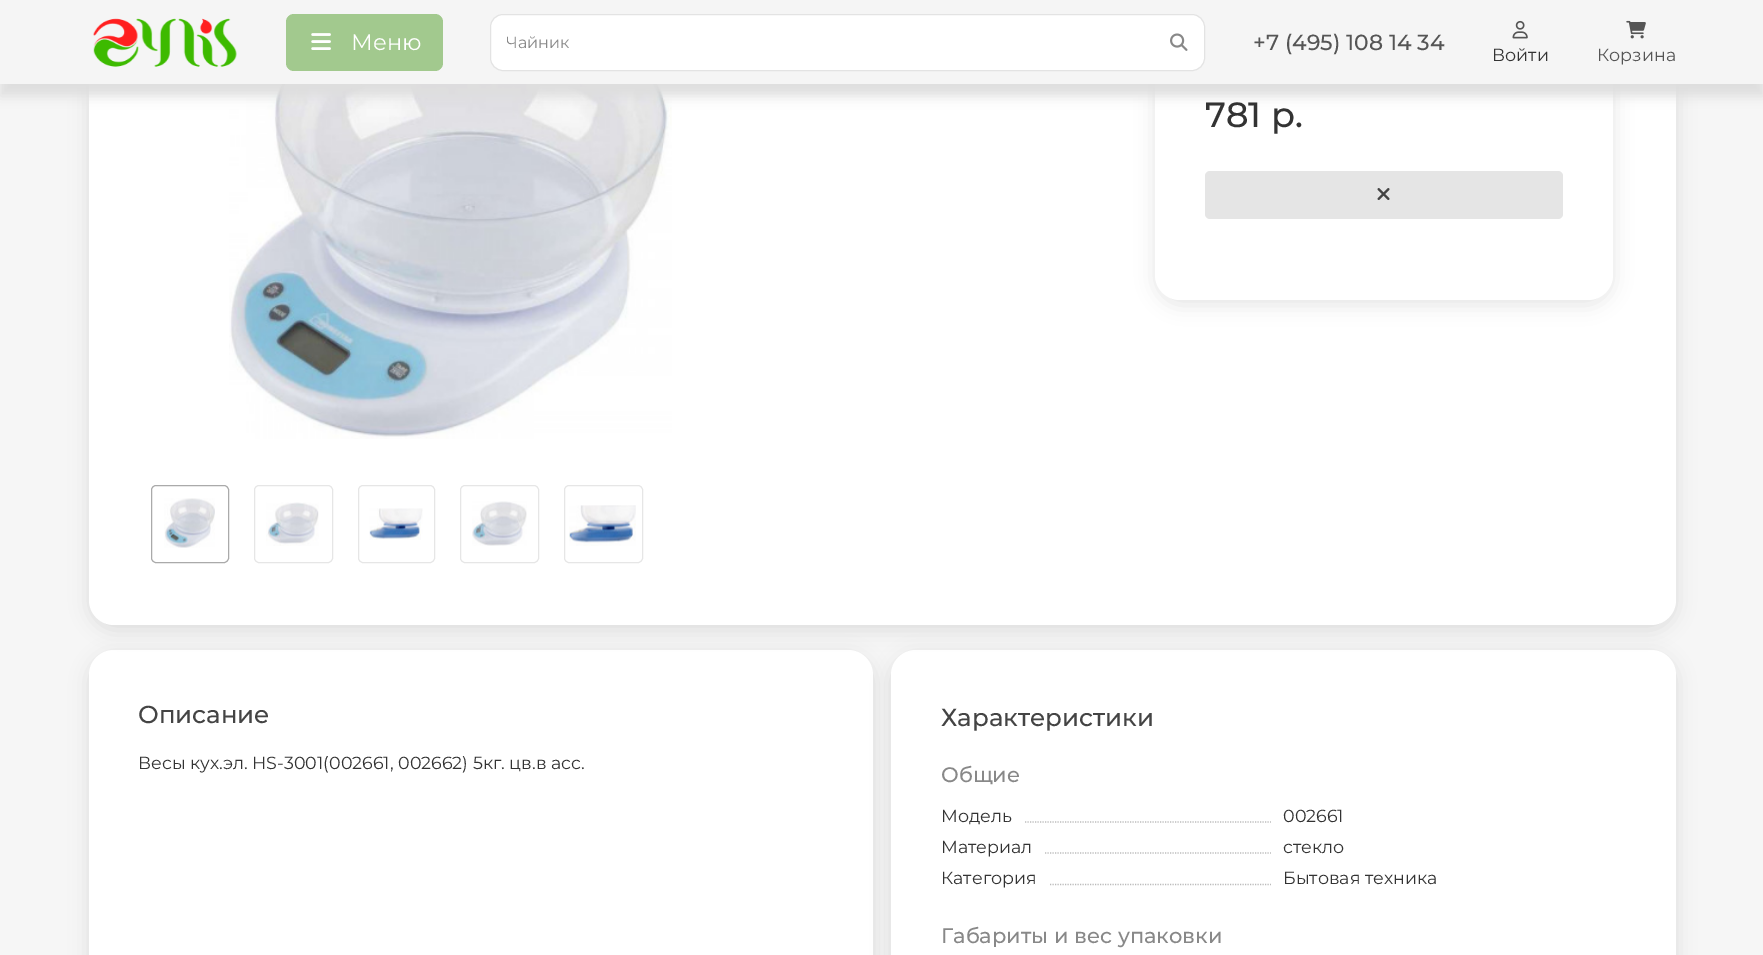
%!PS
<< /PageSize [1763 955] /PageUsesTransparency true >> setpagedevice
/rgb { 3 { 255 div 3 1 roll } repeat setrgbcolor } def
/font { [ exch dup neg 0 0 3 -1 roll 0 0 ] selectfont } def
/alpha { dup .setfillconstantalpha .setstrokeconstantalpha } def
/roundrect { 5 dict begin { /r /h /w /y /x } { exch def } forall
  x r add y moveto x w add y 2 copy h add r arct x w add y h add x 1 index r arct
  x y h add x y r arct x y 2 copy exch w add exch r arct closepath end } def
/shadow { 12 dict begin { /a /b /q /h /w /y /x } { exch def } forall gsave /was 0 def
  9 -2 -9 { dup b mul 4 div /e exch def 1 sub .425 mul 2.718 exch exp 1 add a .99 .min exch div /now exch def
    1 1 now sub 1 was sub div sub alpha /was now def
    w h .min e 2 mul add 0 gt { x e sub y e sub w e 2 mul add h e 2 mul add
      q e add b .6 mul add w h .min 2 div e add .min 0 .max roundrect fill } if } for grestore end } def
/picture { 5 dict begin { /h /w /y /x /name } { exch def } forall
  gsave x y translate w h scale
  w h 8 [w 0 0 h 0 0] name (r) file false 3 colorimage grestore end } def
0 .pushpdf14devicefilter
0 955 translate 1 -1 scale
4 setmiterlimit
246 246 246 rgb
0 0 1763 955 rectfill
0 0 0 rgb
89 655 784 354 25 9.5 0.1 shadow
255 255 255 rgb
89 650 784 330 25 roundrect fill
0 0 0 rgb
891 655 785 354 25 9.5 0.1 shadow
255 255 255 rgb
891 650 785 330 25 roundrect fill
0 0 0 rgb
89 -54 1587 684 25 9.5 0.1 shadow
255 255 255 rgb
89 -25 1587 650 25 roundrect fill
(img/6.rgb) 229 84 443 355 picture
0 0 0 rgb
1155 -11 458 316 25 9.5 0.1 shadow
255 255 255 rgb
1155 -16 458 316 25 roundrect fill
221 221 221 rgb
0 13 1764 83 0 6 1 shadow
245 245 245 rgb
0 0 1763 84 rectfill
(img/1.rgb) 93 18 144 49 picture
162 201 142 rgb
286 14 157 57 8 roundrect fill
(img/2.rgb) 311 33 20 17 picture
255 255 255 rgb
490.5 14.5 714 56 12.5 roundrect gsave fill grestore
227 227 227 rgb
stroke
(img/3.rgb) 1170 33 18 18 picture
(img/4.rgb) 1512 20 16 19 picture
(img/5.rgb) 1626 20 20 19 picture
170 170 170 rgb
151.5 485.5 77 77 4.5 roundrect stroke
(img/7.rgb) 164 498 51 50 picture
230 230 230 rgb
254.5 485.5 78 77 4.5 roundrect stroke
(img/8.rgb) 266 502 53 44 picture
358.5 485.5 76 77 4.5 roundrect stroke
(img/9.rgb) 369 508 54 32 picture
460.5 485.5 78 77 4.5 roundrect stroke
(img/10.rgb) 472 501 55 45 picture
564.5 485.5 78 77 4.5 roundrect stroke
(img/11.rgb) 569 505 67 41 picture
229 229 229 rgb
1205 171 358 48 5 roundrect fill
(img/12.rgb) 1377 188 13 12 picture
187 187 187 rgb
1.2 setlinewidth
[1.25 1.25] 0 setdash
1025 822 moveto 1271 822 lineto stroke
1045 853 moveto 1271 853 lineto stroke
1050 884.5 moveto 1271 884.5 lineto stroke
/Montserrat-Regular 22.5 font
255 255 255 rgb
351 50 moveto (Меню) show
/Montserrat-Regular 16 font
136 136 136 rgb
506 48 moveto (Чайник) show
/Montserrat-Medium 21.9 font
85 85 85 rgb
1253 50 moveto (+7 \(495\) 108 14 34) show
/Montserrat-Regular 17.5 font
51 51 51 rgb
1492 61 moveto (Войти) show
85 85 85 rgb
1597 61 moveto (Корзина) show
/Montserrat-Medium 35 font
51 51 51 rgb
1205 127 moveto (781 р.) show
/Montserrat-Medium 24.5 font
68 68 68 rgb
138 723 moveto (Описание) show
/Montserrat-Regular 17.5 font
51 51 51 rgb
138 769 moveto (Весы кух.эл. HS-3001\(002661, 002662\) 5кг. цв.в асс.) show
/Montserrat-Medium 24.5 font
68 68 68 rgb
941 726 moveto (Характеристики) show
/Montserrat-Medium 21 font
136 136 136 rgb
941 782 moveto (Общие) show
/Montserrat-Regular 17.5 font
51 51 51 rgb
[
  [(Модель) 941 822]
  [(002661) 1283 822]
  [(Материал) 941 853]
  [(стекло) 1283 853]
  [(Категория) 941 884]
  [(Бытовая техника) 1283 884]
] { aload pop moveto show } forall
/Montserrat-Medium 21 font
136 136 136 rgb
941 943 moveto (Габариты и вес упаковки) show
.poppdf14devicefilter showpage
